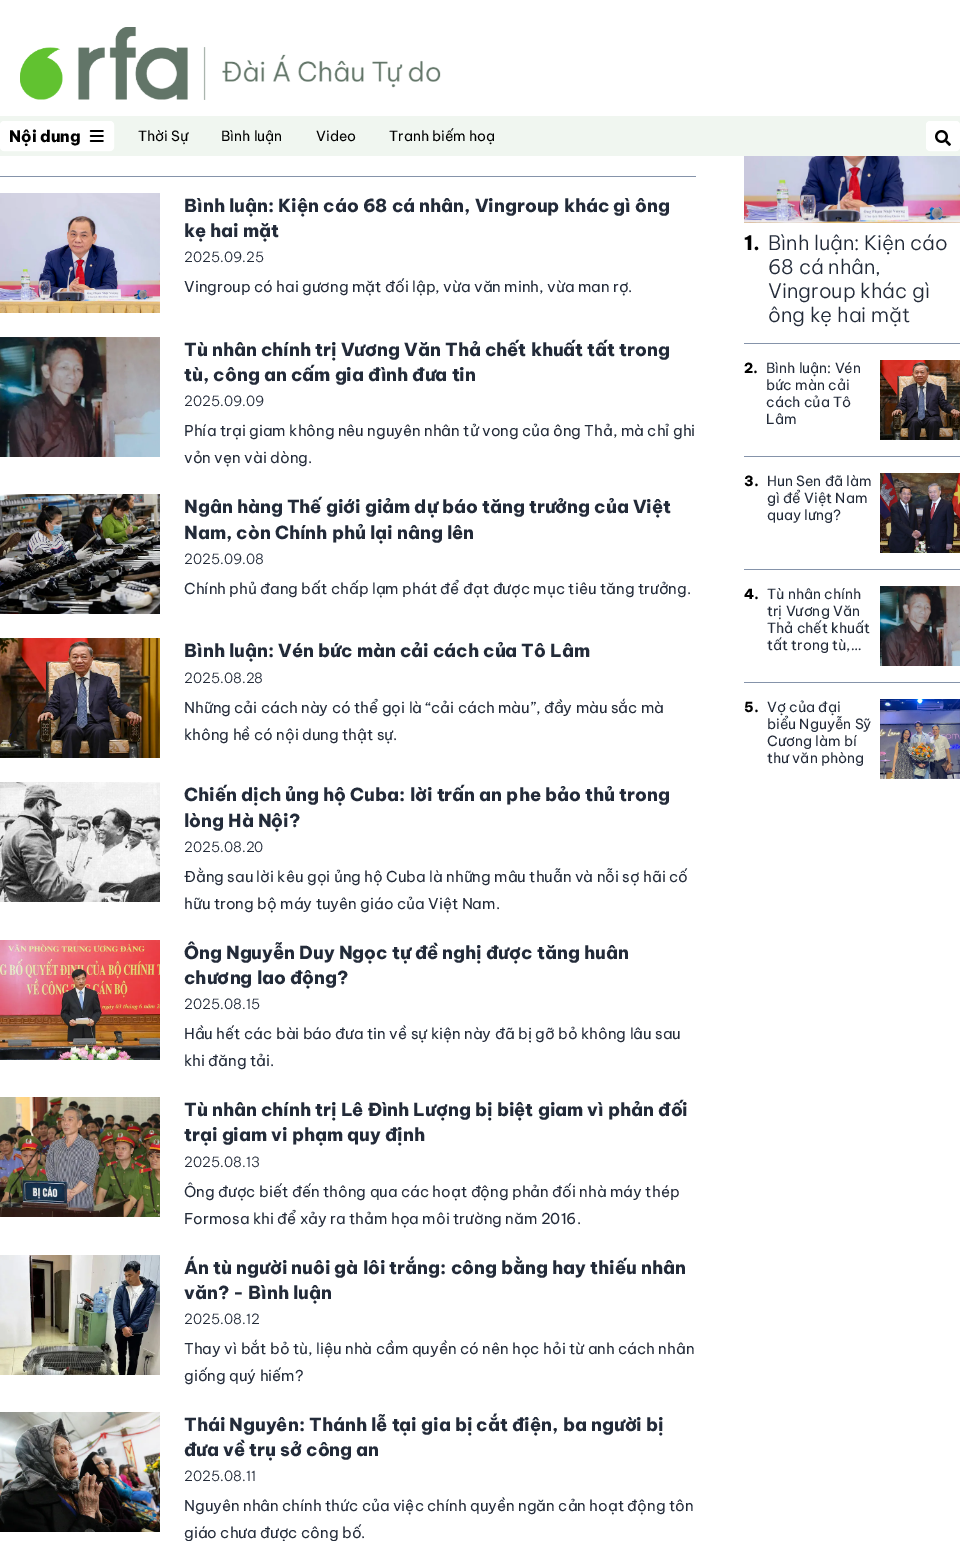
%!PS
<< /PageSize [960 1541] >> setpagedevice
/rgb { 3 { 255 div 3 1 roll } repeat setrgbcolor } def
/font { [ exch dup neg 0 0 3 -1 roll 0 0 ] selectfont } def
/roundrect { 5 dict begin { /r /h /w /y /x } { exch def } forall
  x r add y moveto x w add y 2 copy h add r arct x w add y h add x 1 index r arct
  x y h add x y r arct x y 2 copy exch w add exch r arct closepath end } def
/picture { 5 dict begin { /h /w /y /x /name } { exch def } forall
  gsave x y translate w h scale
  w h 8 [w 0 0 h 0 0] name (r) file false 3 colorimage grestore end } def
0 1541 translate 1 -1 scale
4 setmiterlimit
255 255 255 rgb
0 0 960 1541 rectfill
(img/1.rgb) 20 27 421 73 picture
240 246 240 rgb
0 116 960 40 rectfill
255 255 255 rgb
0.5 121.5 113 29 3.5 roundrect gsave fill grestore
stroke
(img/2.rgb) 89 130 15 12 picture
926.5 121.5 33 29 3.5 roundrect gsave fill grestore
stroke
(img/3.rgb) 935 130 16 16 picture
133 147 170 rgb
0 176 696 1 rectfill
(img/4.rgb) 0 193 160 120 picture
(img/5.rgb) 0 337 160 120 picture
(img/6.rgb) 0 494 160 120 picture
(img/7.rgb) 0 638 160 120 picture
(img/8.rgb) 0 782 160 120 picture
(img/9.rgb) 0 940 160 120 picture
(img/10.rgb) 0 1097 160 120 picture
(img/11.rgb) 0 1255 160 120 picture
(img/12.rgb) 0 1412 160 120 picture
(img/13.rgb) 744 156 216 67 picture
744 343 216 1 rectfill
(img/14.rgb) 880 360 80 80 picture
744 456 216 1 rectfill
(img/15.rgb) 880 473 80 80 picture
744 569 216 1 rectfill
(img/16.rgb) 880 586 80 80 picture
744 682 216 1 rectfill
(img/17.rgb) 880 699 80 80 picture
/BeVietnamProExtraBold-ExtraBold 16 font
0 0 0 rgb
9 142 moveto (Nội dung) show
/BeVietnamPro-Regular 14 font
[
  [(Thời Sự) 138 141]
  [(Bình luận) 221 141]
  [(Video) 316 141]
  [(Tranh biếm hoạ) 389 141]
] { aload pop moveto show } forall
/BeVietnamProExtraBold-ExtraBold 18 font
35 43 57 rgb
184 212 moveto (Bình luận: Kiện cáo 68 cá nhân, Vingroup khác gì ông) show
184 237 moveto (kẹ hai mặt) show
/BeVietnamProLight-Light 14 font
184 262 moveto (2025.09.25) show
/BeVietnamPro-Regular 15 font
184 292 moveto (Vingroup có hai gương mặt đối lập, vừa văn minh, vừa man rợ.) show
/BeVietnamProExtraBold-ExtraBold 18 font
184 356 moveto (Tù nhân chính trị Vương Văn Thả chết khuất tất trong) show
184 381 moveto (tù, công an cấm gia đình đưa tin) show
/BeVietnamProLight-Light 14 font
184 406 moveto (2025.09.09) show
/BeVietnamPro-Regular 15 font
184 436 moveto (Phía trại giam không nêu nguyên nhân tử vong của ông Thả, mà chỉ ghi) show
184 463 moveto (vỏn vẹn vài dòng.) show
/BeVietnamProExtraBold-ExtraBold 18 font
184 513 moveto (Ngân hàng Thế giới giảm dự báo tăng trưởng của Việt) show
184 539 moveto (Nam, còn Chính phủ lại nâng lên) show
/BeVietnamProLight-Light 14 font
184 564 moveto (2025.09.08) show
/BeVietnamPro-Regular 15 font
184 594 moveto (Chính phủ đang bất chấp lạm phát để đạt được mục tiêu tăng trưởng.) show
/BeVietnamProExtraBold-ExtraBold 18 font
184 657 moveto (Bình luận: Vén bức màn cải cách của Tô Lâm) show
/BeVietnamProLight-Light 14 font
184 683 moveto (2025.08.28) show
/BeVietnamPro-Regular 15 font
184 713 moveto (Những cải cách này có thể gọi là “cải cách màu”, đầy màu sắc mà) show
184 740 moveto (không hề có nội dung thật sự.) show
/BeVietnamProExtraBold-ExtraBold 18 font
184 801 moveto (Chiến dịch ủng hộ Cuba: lời trấn an phe bảo thủ trong) show
184 827 moveto (lòng Hà Nội?) show
/BeVietnamProLight-Light 14 font
184 852 moveto (2025.08.20) show
/BeVietnamPro-Regular 15 font
184 882 moveto (Đằng sau lời kêu gọi ủng hộ Cuba là những mâu thuẫn và nỗi sợ hãi cố) show
184 909 moveto (hữu trong bộ máy tuyên giáo của Việt Nam.) show
/BeVietnamProExtraBold-ExtraBold 18 font
184 959 moveto (Ông Nguyễn Duy Ngọc tự đề nghị được tăng huân) show
184 984 moveto (chương lao động?) show
/BeVietnamProLight-Light 14 font
184 1009 moveto (2025.08.15) show
/BeVietnamPro-Regular 15 font
184 1039 moveto (Hầu hết các bài báo đưa tin về sự kiện này đã bị gỡ bỏ không lâu sau) show
184 1066 moveto (khi đăng tải.) show
/BeVietnamProExtraBold-ExtraBold 18 font
184 1116 moveto (Tù nhân chính trị Lê Đình Lượng bị biệt giam vì phản đối) show
184 1141 moveto (trại giam vi phạm quy định) show
/BeVietnamProLight-Light 14 font
184 1167 moveto (2025.08.13) show
/BeVietnamPro-Regular 15 font
184 1197 moveto (Ông được biết đến thông qua các hoạt động phản đối nhà máy thép) show
184 1224 moveto (Formosa khi để xảy ra thảm họa môi trường năm 2016.) show
/BeVietnamProExtraBold-ExtraBold 18 font
184 1274 moveto (Án tù người nuôi gà lôi trắng: công bằng hay thiếu nhân) show
184 1299 moveto (văn? - Bình luận) show
/BeVietnamProLight-Light 14 font
184 1324 moveto (2025.08.12) show
/BeVietnamPro-Regular 15 font
184 1354 moveto (Thay vì bắt bỏ tù, liệu nhà cầm quyền có nên học hỏi từ anh cách nhân) show
184 1381 moveto (giống quý hiếm?) show
/BeVietnamProExtraBold-ExtraBold 18 font
184 1431 moveto (Thái Nguyên: Thánh lễ tại gia bị cắt điện, ba người bị) show
184 1456 moveto (đưa về trụ sở công an) show
/BeVietnamProLight-Light 14 font
184 1481 moveto (2025.08.11) show
/BeVietnamPro-Regular 15 font
184 1511 moveto (Nguyên nhân chính thức của việc chính quyền ngăn cản hoạt động tôn) show
184 1538 moveto (giáo chưa được công bố.) show
/BeVietnamProExtraBold-ExtraBold 20 font
0 0 0 rgb
744 250 moveto (1.) show
/BeVietnamProLight-Light 20 font
35 43 57 rgb
[
  [(Bình luận: Kiện cáo) 768 250]
  [(68 cá nhân,) 768 274]
  [(Vingroup khác gì) 768 298]
  [(ông kẹ hai mặt) 768 322]
] { aload pop moveto show } forall
/BeVietnamProExtraBold-ExtraBold 14 font
0 0 0 rgb
744 373 moveto (2.) show
/BeVietnamPro-Regular 14 font
35 43 57 rgb
[
  [(Bình luận: Vén) 766 373]
  [(bức màn cải) 766 390]
  [(cách của Tô) 766 407]
  [(Lâm) 766 424]
] { aload pop moveto show } forall
/BeVietnamProExtraBold-ExtraBold 14 font
0 0 0 rgb
744 486 moveto (3.) show
/BeVietnamPro-Regular 14 font
35 43 57 rgb
[
  [(Hun Sen đã làm) 767 486]
  [(gì để Việt Nam) 767 503]
  [(quay lưng?) 767 520]
] { aload pop moveto show } forall
/BeVietnamProExtraBold-ExtraBold 14 font
0 0 0 rgb
744 599 moveto (4.) show
/BeVietnamPro-Regular 14 font
35 43 57 rgb
[
  [(Tù nhân chính) 767 599]
  [(trị Vương Văn) 767 616]
  [(Thả chết khuất) 767 633]
  [(tất trong tù,…) 767 650]
] { aload pop moveto show } forall
/BeVietnamProExtraBold-ExtraBold 14 font
0 0 0 rgb
744 712 moveto (5.) show
/BeVietnamPro-Regular 14 font
35 43 57 rgb
[
  [(Vợ của đại) 767 712]
  [(biểu Nguyễn Sỹ) 767 729]
  [(Cương làm bí) 767 746]
  [(thư văn phòng) 767 763]
] { aload pop moveto show } forall
showpage
